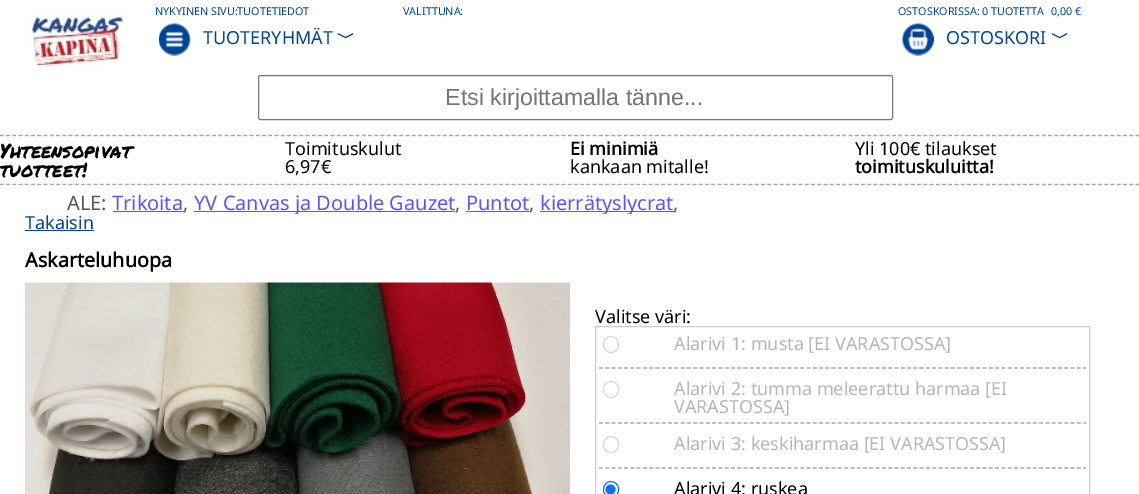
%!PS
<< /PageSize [1139 494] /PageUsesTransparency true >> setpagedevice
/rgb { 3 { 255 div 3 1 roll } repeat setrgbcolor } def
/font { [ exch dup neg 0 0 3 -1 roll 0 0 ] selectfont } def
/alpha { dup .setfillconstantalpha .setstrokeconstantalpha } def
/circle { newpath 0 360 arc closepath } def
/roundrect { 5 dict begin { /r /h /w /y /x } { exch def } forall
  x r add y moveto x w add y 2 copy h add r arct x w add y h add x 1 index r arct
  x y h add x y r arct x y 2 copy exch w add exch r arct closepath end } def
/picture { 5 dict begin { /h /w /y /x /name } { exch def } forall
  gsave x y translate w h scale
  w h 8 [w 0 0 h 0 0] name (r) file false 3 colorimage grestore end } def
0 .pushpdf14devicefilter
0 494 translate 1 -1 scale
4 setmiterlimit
255 255 255 rgb
0 0 1139 494 rectfill
(img/1.rgb) 25 10 100 60 picture
(img/2.rgb) 159 23 32 33 picture
(img/3.rgb) 901 23 33 33 picture
118 118 118 rgb
258.5 75.5 634 44 2 roundrect stroke
169 169 169 rgb
1.2 setlinewidth
[3.75 2.49] 0 setdash
0 135.5 moveto 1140 135.5 lineto stroke
0 184.5 moveto 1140 184.5 lineto stroke
0.65 alpha
[
  [0 185 746 1 253 251 255]
] { aload pop rgb rectfill } forall
1 alpha
[
  [113 211 71 1 88 88 244]
  [194 211 261 1 88 88 244]
  [466 211 63 1 88 88 244]
  [540 211 134 1 88 88 244]
  [25 230 69 1 0 69 144]
] { aload pop rgb rectfill } forall
(img/4.rgb) 25 282 545 212 picture
204 204 204 rgb
1 setlinewidth
[] 0 setdash
595.5 326.5 494 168 rectstroke
166 166 166 rgb
1.2 setlinewidth
[3.75 2.54] 0 setdash
599 368 moveto 1086 368 lineto stroke
214 214 214 rgb
1 setlinewidth
[] 0 setdash
603.5 336.5 15 16 7.5 roundrect stroke
166 166 166 rgb
1.2 setlinewidth
[3.75 2.54] 0 setdash
599 423 moveto 1086 423 lineto stroke
214 214 214 rgb
1 setlinewidth
[] 0 setdash
603.5 381.5 15 16 7.5 roundrect stroke
166 166 166 rgb
1.2 setlinewidth
[3.75 2.54] 0 setdash
599 468 moveto 1086 468 lineto stroke
214 214 214 rgb
1 setlinewidth
[] 0 setdash
603.5 436.5 15 16 7.5 roundrect stroke
0 117 255 rgb
603.5 481.5 15 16 7.5 roundrect stroke
610.5 489.5 5 circle fill
/NotoSans-Regular 10.75 font
0 69 144 rgb
155 15 moveto (NYKYINEN SIVU:TUOTETIEDOT) show
/NotoSans-Regular 18 font
203 44 moveto (TUOTERYHMÄT) show
/WenQuanYiZenHei-Bold 18 font
337 44 moveto (﹀) show
/NotoSans-Regular 10.75 font
[
  [(VALITTUNA:) 403 15]
  [(OSTOSKORISSA: 0 TUOTETTA) 898 15]
  [(0,00 €) 1051 15]
] { aload pop moveto show } forall
/NotoSans-Regular 18 font
946 44 moveto (OSTOSKORI) show
/WenQuanYiZenHei-Bold 18 font
1051 44 moveto (﹀) show
/LiberationSans-Regular 23.25 font
117 117 117 rgb
445 105 moveto (Etsi kirjoittamalla tänne...) show
/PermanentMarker-Regular 19.75 font
0 0 0 rgb
0 158 moveto (Yhteensopivat) show
0 177 moveto (tuotteet!) show
/NotoSans-Regular 18 font
285 155 moveto (Toimituskulut) show
285 173 moveto (6,97€) show
/NotoSans-Bold 18 font
570 155 moveto (Ei minimiä) show
/NotoSans-Regular 18 font
570 173 moveto (kankaan mitalle!) show
855 155 moveto (Yli 100€ tilaukset) show
/NotoSans-Bold 18 font
855 173 moveto (toimituskuluitta!) show
/NotoSans-Regular 20 font
88 88 88 rgb
67 210 moveto (ALE:) show
88 88 244 rgb
112 210 moveto (Trikoita) show
88 88 88 rgb
183 210 moveto (,) show
gsave
0 185 746 29 rectclip
88 88 244 rgb
194 210 moveto (YV Canvas ja Double Gauzet) show
grestore
455 210 moveto (,) show
88 88 244 rgb
466 210 moveto (Puntot) show
88 88 88 rgb
529 210 moveto (,) show
gsave
0 185 746 29 rectclip
88 88 244 rgb
540 210 moveto (kierrätyslycrat) show
grestore
673 210 moveto (,) show
/NotoSans-Regular 18 font
0 69 144 rgb
25 229 moveto (Takaisin) show
/NotoSans-Bold 19.75 font
0 0 0 rgb
25 267 moveto (Askarteluhuopa) show
/NotoSans-Regular 18 font
595 323 moveto (Valitse väri:) show
182 182 182 rgb
[
  [(Alarivi 1: musta [EI VARASTOSSA]) 674 350]
  [(Alarivi 2: tumma meleerattu harmaa [EI) 674 395]
  [(VARASTOSSA]) 674 413]
  [(Alarivi 3: keskiharmaa [EI VARASTOSSA]) 674 450]
] { aload pop moveto show } forall
0 0 0 rgb
674 495 moveto (Alarivi 4: ruskea) show
.poppdf14devicefilter showpage
